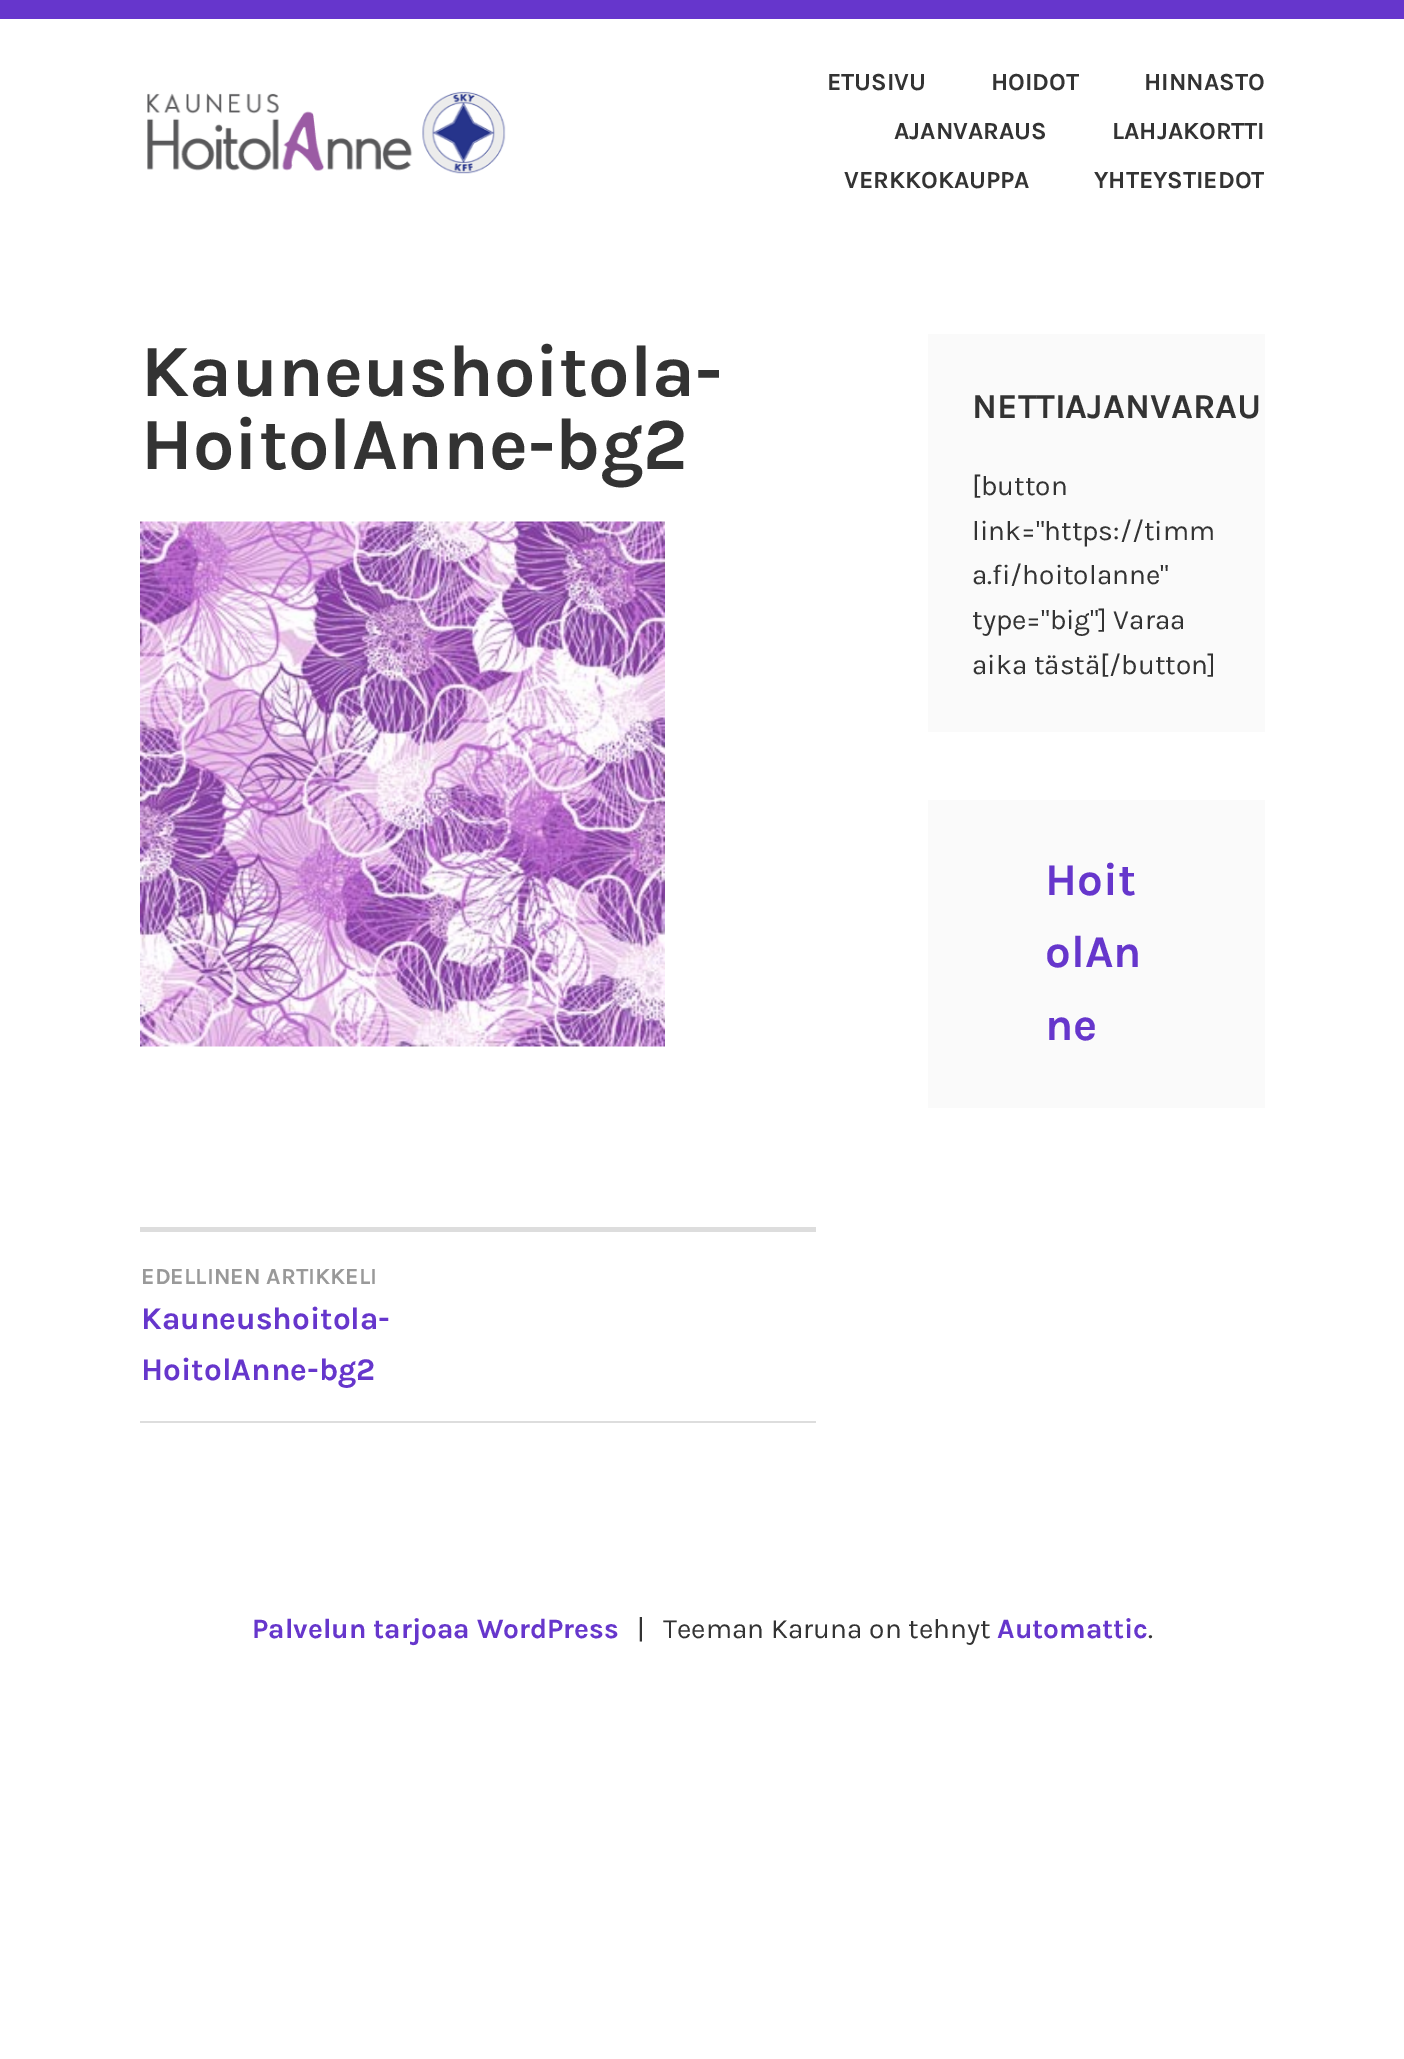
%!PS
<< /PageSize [1404 2059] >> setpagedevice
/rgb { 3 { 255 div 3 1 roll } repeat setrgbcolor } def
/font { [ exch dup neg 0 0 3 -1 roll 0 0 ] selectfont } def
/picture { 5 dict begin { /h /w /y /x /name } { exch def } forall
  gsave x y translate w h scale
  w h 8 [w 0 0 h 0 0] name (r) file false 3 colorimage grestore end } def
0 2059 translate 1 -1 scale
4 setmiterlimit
255 255 255 rgb
0 0 1404 2059 rectfill
102 54 204 rgb
0 0 1404 19 rectfill
(img/1.rgb) 147 91 359 83 picture
(img/2.rgb) 140 521 525 526 picture
[
  [140 1227 676 5 221 221 221]
  [140 1421 676 2 221 221 221]
  [928 334 337 398 250 250 250]
  [928 800 337 308 250 250 250]
] { aload pop rgb rectfill } forall
/Karla-Bold 24.5 font
51 51 51 rgb
[
  [(ETUSIVU) 827 90]
  [(HOIDOT) 991 90]
  [(HINNASTO) 1144 90]
  [(AJANVARAUS) 894 139]
  [(LAHJAKORTTI) 1112 139]
  [(VERKKOKAUPPA) 844 188]
  [(YHTEYSTIEDOT) 1094 188]
] { aload pop moveto show } forall
/Karla-Bold 73.5 font
141 396 moveto (Kauneushoitola-) show
141 469 moveto (HoitolAnne-bg2) show
/Karla-Bold 23.1 font
153 153 153 rgb
141 1284 moveto (EDELLINEN ARTIKKELI) show
/Karla-Bold 31.5 font
102 54 204 rgb
141 1329 moveto (Kauneushoitola-) show
141 1380 moveto (HoitolAnne-bg2) show
/Karla-Bold 35 font
51 51 51 rgb
972 418 moveto (NETTIAJANVARAU) show
/Karla-Regular 28 font
[
  [([button) 972 495]
  [(link="https://timm) 972 540]
  [(a.fi/hoitolanne") 972 584]
  [(type="big"] Varaa) 972 629]
  [(aika tästä[/button]) 972 674]
] { aload pop moveto show } forall
/Karla-Bold 45.5 font
102 54 204 rgb
[
  [(Hoit) 1045 895]
  [(olAn) 1045 967]
  [(ne) 1045 1040]
] { aload pop moveto show } forall
/Karla-Bold 28 font
252 1638 moveto (Palvelun tarjoaa WordPress) show
/Karla-Regular 28 font
51 51 51 rgb
637 1638 moveto (|) show
663 1638 moveto (Teeman Karuna on tehnyt) show
/Karla-Bold 28 font
102 54 204 rgb
997 1638 moveto (Automattic) show
/Karla-Regular 28 font
51 51 51 rgb
1148 1638 moveto (.) show
showpage
